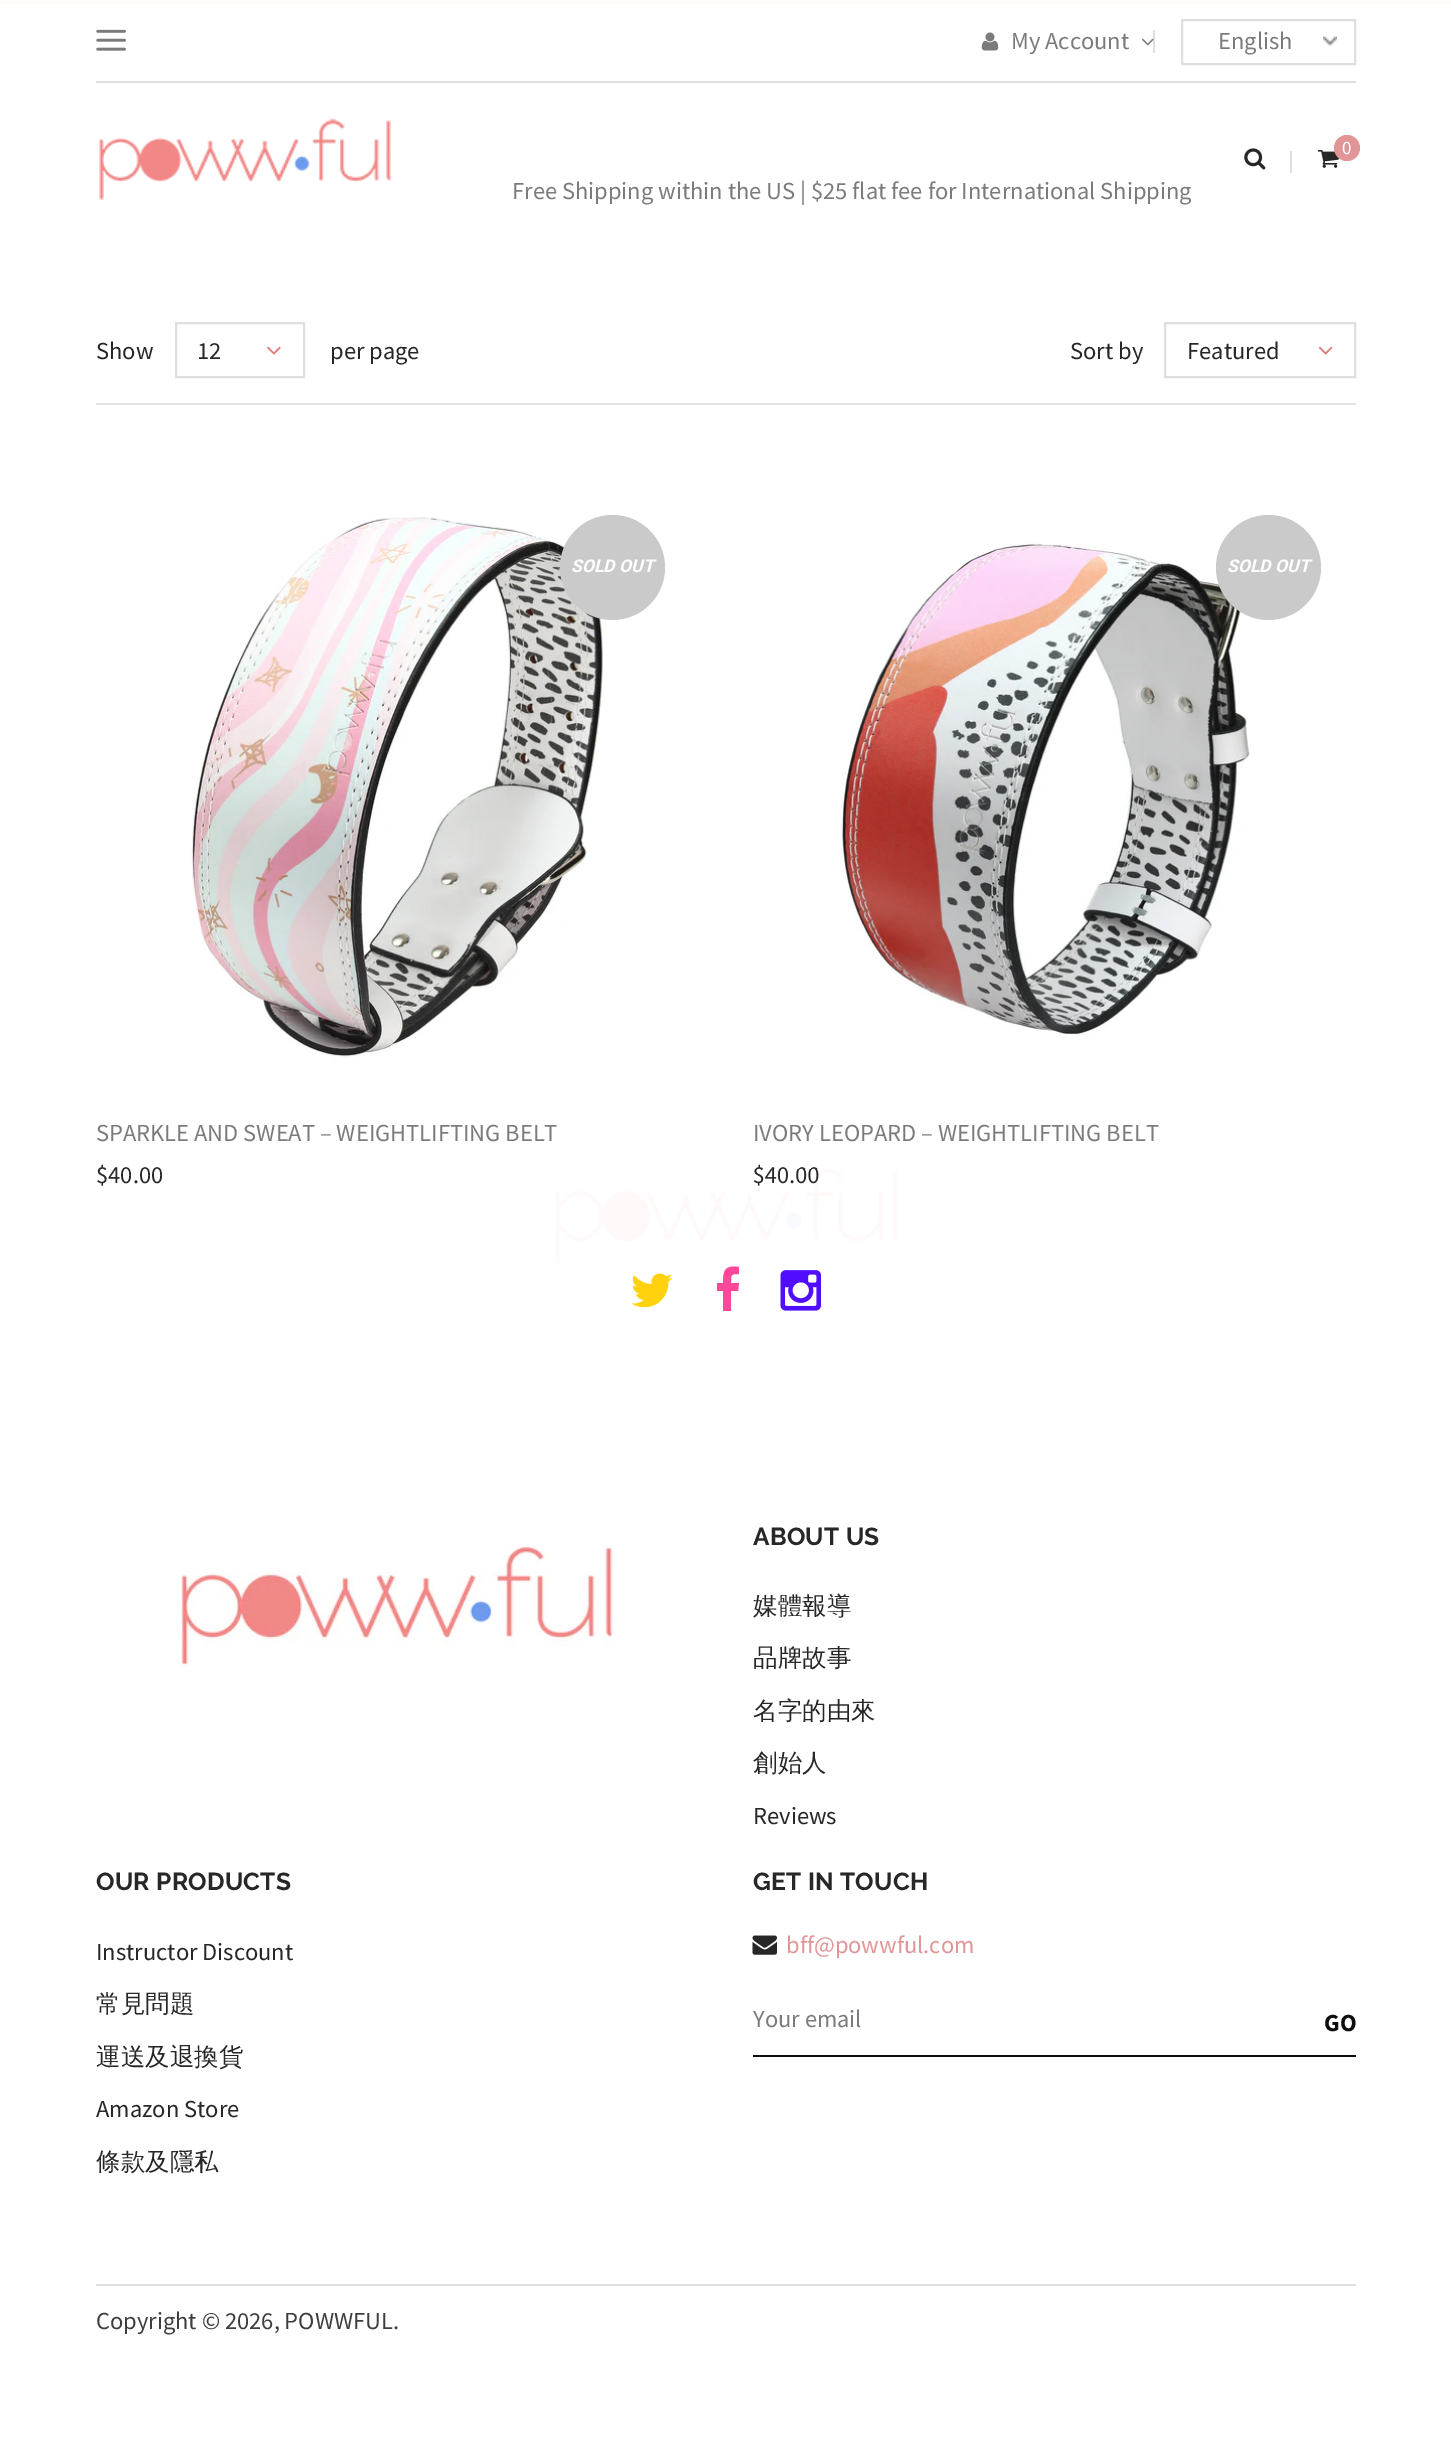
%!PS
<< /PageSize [1451 2464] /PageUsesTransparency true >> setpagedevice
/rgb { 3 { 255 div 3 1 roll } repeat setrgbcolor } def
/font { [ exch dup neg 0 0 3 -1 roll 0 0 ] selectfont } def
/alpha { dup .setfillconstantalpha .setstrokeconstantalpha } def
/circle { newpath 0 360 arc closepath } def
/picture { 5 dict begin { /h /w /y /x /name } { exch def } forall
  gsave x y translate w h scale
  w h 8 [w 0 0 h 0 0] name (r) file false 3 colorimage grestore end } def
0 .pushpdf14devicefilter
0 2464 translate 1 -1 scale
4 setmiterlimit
255 255 255 rgb
0 0 1451 2464 rectfill
253 250 250 rgb
0 0 1451 4 rectfill
223 223 223 rgb
96 81 1260 2 rectfill
(img/2.rgb) 96 29 30 22 picture
(img/3.rgb) 981 32 18 19 picture
(img/4.rgb) 1142 38 12 8 picture
0.25 alpha
123 123 123 rgb
1153 30 2 23 rectfill
1 alpha
(img/5.rgb) 1323 36 14 10 picture
223 223 223 rgb
2 setlinewidth
1182 20 173 44 rectstroke
(img/6.rgb) 99 118 293 83 picture
(img/7.rgb) 1244 148 22 22 picture
1290 151 2 22 rectfill
(img/8.rgb) 1317 150 22 18 picture
225 149 150 rgb
1347 148 13 circle fill
227 227 227 rgb
96 403 1260 2 rectfill
223 223 223 rgb
176 323 128 54 rectstroke
(img/9.rgb) 267 346 14 9 picture
1165 323 190 54 rectstroke
(img/10.rgb) 1318 346 15 9 picture
(img/11.rgb) 190 517 414 542 picture
202 202 202 rgb
612.5 567.5 52.5 circle fill
(img/12.rgb) 841 543 409 492 picture
1268.5 567.5 52.5 circle fill
(img/13.rgb) 631 1273 42 35 picture
255 72 153 rgb
739 1267 moveto 739 1274 lineto 731 1274 731 1274 731 1283 curveto 739 1283 lineto 738 1291 lineto 731 1291 lineto 731 1311 lineto 723 1311 lineto 723 1291 lineto 717 1291 lineto 717 1283 lineto 723 1283 lineto 723 1270 725 1265 739 1267 curveto closepath fill
(img/14.rgb) 780 1270 41 41 picture
(img/15.rgb) 181 1545 432 121 picture
(img/16.rgb) 752 1935 25 20 picture
13 13 13 rgb
753 2055 603 2 rectfill
223 223 223 rgb
96 2284 1260 2 rectfill
/SourceSansPro-Regular 24.5 font
123 123 123 rgb
1011 49 moveto (My Account) show
1218 49 moveto (English) show
/SourceSansPro-Regular 19 font
255 255 255 rgb
1342 154 moveto (0) show
/SourceSansPro-Regular 24.5 font
123 123 123 rgb
512 199 moveto (Free Shipping within the US | $25 flat fee for International Shipping) show
39 39 39 rgb
[
  [(Show) 96 359]
  [(12) 197 359]
  [(per page) 330 359]
  [(Sort by) 1070 359]
  [(Featured) 1187 359]
] { aload pop moveto show } forall
/Roboto-BoldItalic 17.5 font
255 255 255 rgb
571 572 moveto (SOLD OUT) show
/SourceSansPro-Regular 24.5 font
123 123 123 rgb
96 1141 moveto (SPARKLE AND SWEAT – WEIGHTLIFTING BELT) show
39 39 39 rgb
96 1183 moveto ($40.00) show
/Roboto-BoldItalic 17.5 font
255 255 255 rgb
1227 572 moveto (SOLD OUT) show
/SourceSansPro-Regular 24.5 font
123 123 123 rgb
753 1141 moveto (IVORY LEOPARD – WEIGHTLIFTING BELT) show
39 39 39 rgb
753 1183 moveto ($40.00) show
(img/1.rgb) 556 1169 341 94 picture
/Raleway-Bold 24.5 font
753 1545 moveto 0.25 0 (ABOUT US) ashow
/WenQuanYiZenHei-Medium 24.5 font
[
  [(媒體報導) 753 1614]
  [(品牌故事) 753 1666]
  [(名字的由來) 753 1719]
  [(創始人) 753 1771]
] { aload pop moveto show } forall
/SourceSansPro-Regular 24.5 font
753 1824 moveto (Reviews) show
/Raleway-Bold 24.5 font
96 1890 moveto 0.25 0 (OUR PRODUCTS) ashow
/SourceSansPro-Regular 24.5 font
96 1960 moveto (Instructor Discount) show
/WenQuanYiZenHei-Medium 24.5 font
96 2012 moveto (常見問題) show
96 2065 moveto (運送及退換貨) show
/SourceSansPro-Regular 24.5 font
96 2117 moveto (Amazon Store) show
/WenQuanYiZenHei-Medium 24.5 font
96 2170 moveto (條款及隱私) show
/Raleway-Bold 24.5 font
753 1890 moveto 0.25 0 (GET IN TOUCH) ashow
/SourceSansPro-Regular 24.5 font
225 149 150 rgb
786 1953 moveto (bff@powwful.com) show
123 123 123 rgb
753 2027 moveto (Your email) show
/SourceSansPro-Bold 24.5 font
13 13 13 rgb
1324 2031 moveto (GO) show
/SourceSansPro-Regular 24.5 font
62 62 62 rgb
96 2329 moveto (Copyright © 2026, POWWFUL.) show
.poppdf14devicefilter showpage
